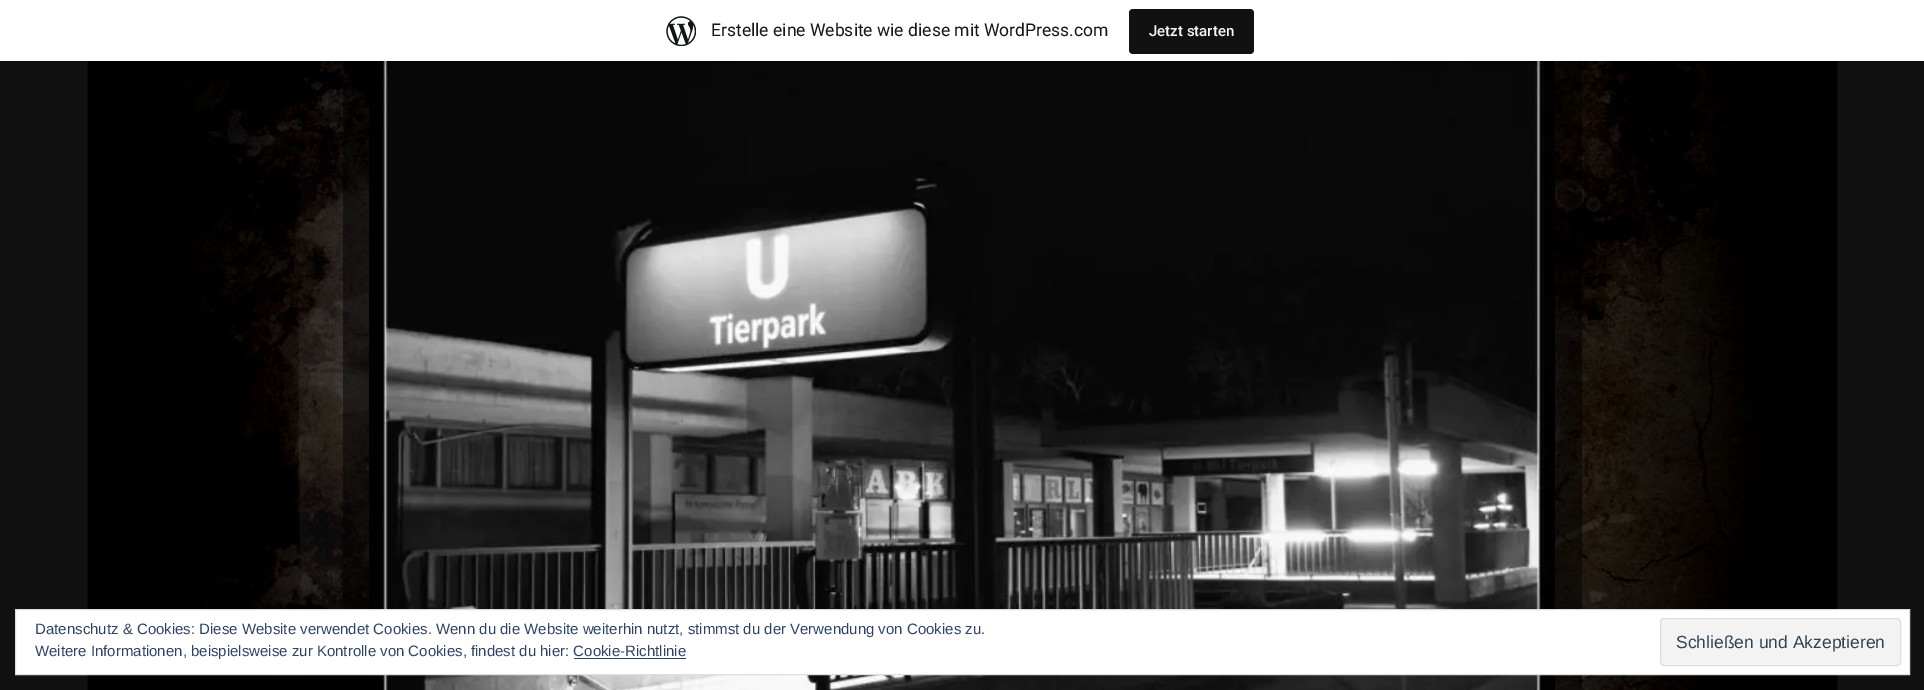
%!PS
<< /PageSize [1924 690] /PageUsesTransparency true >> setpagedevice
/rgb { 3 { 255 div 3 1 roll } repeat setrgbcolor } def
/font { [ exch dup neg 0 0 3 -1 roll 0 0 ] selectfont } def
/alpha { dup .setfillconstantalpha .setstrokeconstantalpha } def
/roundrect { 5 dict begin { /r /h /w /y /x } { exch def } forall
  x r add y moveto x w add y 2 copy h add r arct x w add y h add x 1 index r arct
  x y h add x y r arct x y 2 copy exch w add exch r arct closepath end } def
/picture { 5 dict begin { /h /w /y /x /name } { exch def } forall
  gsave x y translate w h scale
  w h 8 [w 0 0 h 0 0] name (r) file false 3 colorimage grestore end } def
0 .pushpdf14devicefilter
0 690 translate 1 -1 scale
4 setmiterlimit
17 17 17 rgb
0 0 1924 690 rectfill
(img/1.rgb) 87 61 1751 629 picture
0.5 alpha
0 0 0 rgb
343 61 1239 629 rectfill
1 alpha
(img/3.rgb) 369 61 1186 629 picture
0.08 alpha
1 61 moveto 1 65 lineto 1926 65 lineto 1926 4 lineto 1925 4 lineto 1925 61 lineto closepath fill
1 alpha
255 255 255 rgb
0 0 1924 61 rectfill
(img/2.rgb) 666 16 30 30 picture
17 17 17 rgb
1129 9 125 45 4 roundrect fill
255 255 255 rgb
15.5 609.5 moveto 1909.5 609.5 lineto 1909.5 674.5 lineto 15.5 674.5 lineto closepath gsave fill grestore
222 222 222 rgb
stroke
243 243 243 rgb
1660.5 618.5 240 47 3.5 roundrect gsave fill grestore
222 222 222 rgb
stroke
46 68 103 rgb
574 658 112 1 rectfill
/Roboto-Regular 17.5 font
23 23 23 rgb
711 36 moveto (Erstelle eine Website wie diese mit WordPress.com) show
/Roboto-Medium 15 font
246 247 247 rgb
1149 36 moveto (Jetzt starten) show
/LiberationSans-Regular 15 font
46 68 103 rgb
35 634 moveto (Datenschutz & Cookies: Diese Website verwendet Cookies. Wenn du die Website weiterhin nutzt, stimmst du der Verwendung von Cookies zu.) show
35 656 moveto (Weitere Informationen, beispielsweise zur Kontrolle von Cookies, findest du hier: Cookie-Richtlinie) show
/LiberationSans-Regular 17.5 font
46 68 83 rgb
1676 648 moveto (Schließen und Akzeptieren) show
.poppdf14devicefilter showpage
